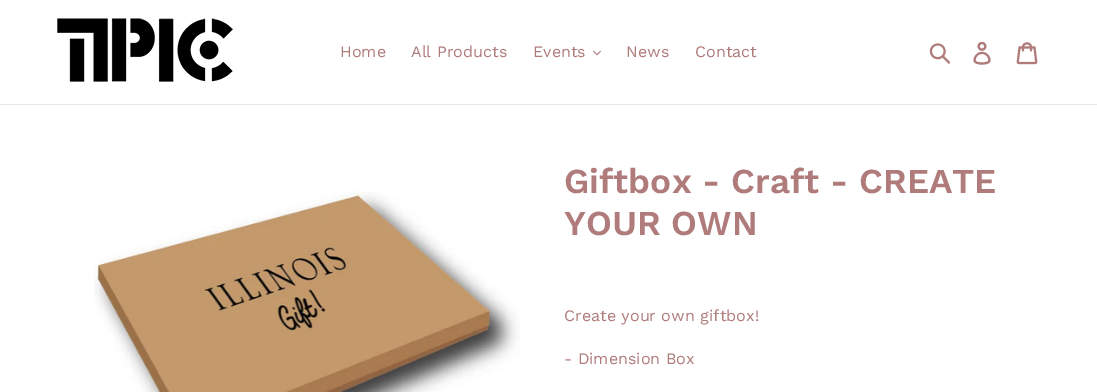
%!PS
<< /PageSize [1097 392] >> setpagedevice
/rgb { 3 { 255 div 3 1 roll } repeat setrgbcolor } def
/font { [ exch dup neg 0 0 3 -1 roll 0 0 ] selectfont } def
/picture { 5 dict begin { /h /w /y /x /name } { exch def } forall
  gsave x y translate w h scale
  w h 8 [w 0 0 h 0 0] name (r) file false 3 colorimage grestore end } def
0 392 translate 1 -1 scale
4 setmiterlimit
255 255 255 rgb
0 0 1097 392 rectfill
232 233 235 rgb
0 104 1097 1 rectfill
(img/1.rgb) 57 18 176 64 picture
(img/2.rgb) 593 50 8 6 picture
(img/3.rgb) 929 43 22 21 picture
(img/4.rgb) 973 42 18 23 picture
(img/5.rgb) 1016 42 22 23 picture
(img/6.rgb) 94 191 426 201 picture
/WorkSans-Regular 16 font
176 123 123 rgb
[
  [(Home) 340 57]
  [(All Products) 411 57]
  [(Events) 533 57]
  [(News) 626 57]
  [(Contact) 695 57]
] { aload pop moveto show } forall
/WorkSans-SemiBold 35 font
564 193 moveto (Giftbox - Craft - CREATE) show
564 235 moveto (YOUR OWN) show
/WorkSans-Regular 16 font
564 321 moveto (Create your own giftbox!) show
564 364 moveto (- Dimension Box) show
showpage
